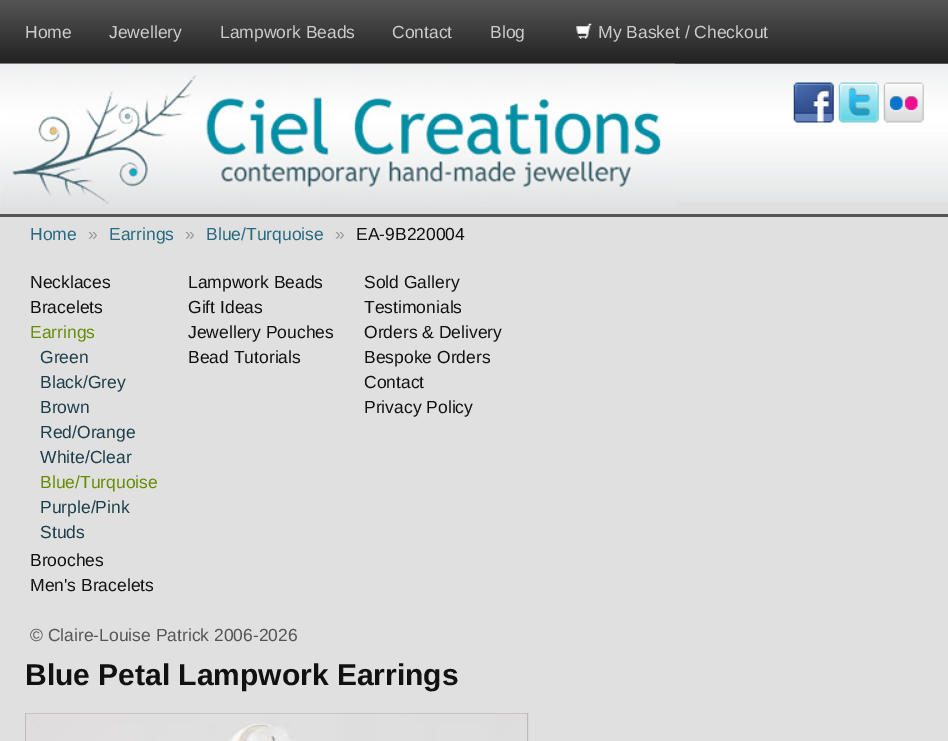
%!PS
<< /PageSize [948 741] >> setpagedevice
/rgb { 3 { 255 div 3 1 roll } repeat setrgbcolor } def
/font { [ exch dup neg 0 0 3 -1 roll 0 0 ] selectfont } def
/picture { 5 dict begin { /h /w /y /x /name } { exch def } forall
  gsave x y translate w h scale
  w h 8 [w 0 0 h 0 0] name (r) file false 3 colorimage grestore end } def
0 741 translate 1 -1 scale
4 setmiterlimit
224 224 224 rgb
0 0 948 741 rectfill
gsave 0 0 moveto 948 0 lineto 948 63 lineto 0 63 lineto closepath clip newpath
<< /ShadingType 2 /ColorSpace /DeviceRGB /Coords [474 0 474 63] /Extend [true true] /Function << /FunctionType 2 /Domain [0 1] /C0 [0.333 0.333 0.333] /C1 [0.133 0.133 0.133] /N 1 >> >> shfill grestore
37 37 37 rgb
0 63 948 1 rectfill
(img/1.rgb) 576 23 16 17 picture
(img/2.rgb) 0 63 948 140 picture
85 85 85 rgb
0 214 948 3 rectfill
(img/3.rgb) 0 63 675 145 picture
(img/4.rgb) 793 82 41 41 picture
(img/5.rgb) 838 82 41 41 picture
(img/6.rgb) 883 82 41 41 picture
187 187 187 rgb
25.5 713.5 502 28 rectstroke
(img/7.rgb) 26 713 500 28 picture
/LiberationSans-Regular 17.5 font
204 204 204 rgb
[
  [(Home) 25 38]
  [(Jewellery) 109 38]
  [(Lampwork Beads) 220 38]
  [(Contact) 392 38]
  [(Blog) 490 38]
  [(My Basket / Checkout) 598 38]
] { aload pop moveto show } forall
38 106 128 rgb
30 240 moveto (Home) show
153 153 153 rgb
88 240 moveto (») show
38 106 128 rgb
109 240 moveto (Earrings) show
153 153 153 rgb
185 240 moveto (») show
38 106 128 rgb
206 240 moveto (Blue/Turquoise) show
153 153 153 rgb
335 240 moveto (») show
17 17 17 rgb
[
  [(EA-9B220004) 356 240]
  [(Necklaces) 30 288]
  [(Bracelets) 30 313]
] { aload pop moveto show } forall
102 140 0 rgb
30 338 moveto (Earrings) show
28 62 74 rgb
[
  [(Green) 40 363]
  [(Black/Grey) 40 388]
  [(Brown) 40 413]
  [(Red/Orange) 40 438]
  [(White/Clear) 40 463]
] { aload pop moveto show } forall
102 140 0 rgb
40 488 moveto (Blue/Turquoise) show
28 62 74 rgb
40 513 moveto (Purple/Pink) show
40 538 moveto (Studs) show
17 17 17 rgb
[
  [(Brooches) 30 566]
  [(Men's Bracelets) 30 591]
  [(Lampwork Beads) 188 288]
  [(Gift Ideas) 188 313]
  [(Jewellery Pouches) 188 338]
  [(Bead Tutorials) 188 363]
  [(Sold Gallery) 364 288]
  [(Testimonials) 364 313]
  [(Orders & Delivery) 364 338]
  [(Bespoke Orders) 364 363]
  [(Contact) 364 388]
  [(Privacy Policy) 364 413]
] { aload pop moveto show } forall
85 85 85 rgb
30 641 moveto (© Claire-Louise Patrick 2006-2026) show
/LiberationSans-Bold 30 font
17 17 17 rgb
25 685 moveto (Blue Petal Lampwork Earrings) show
showpage
